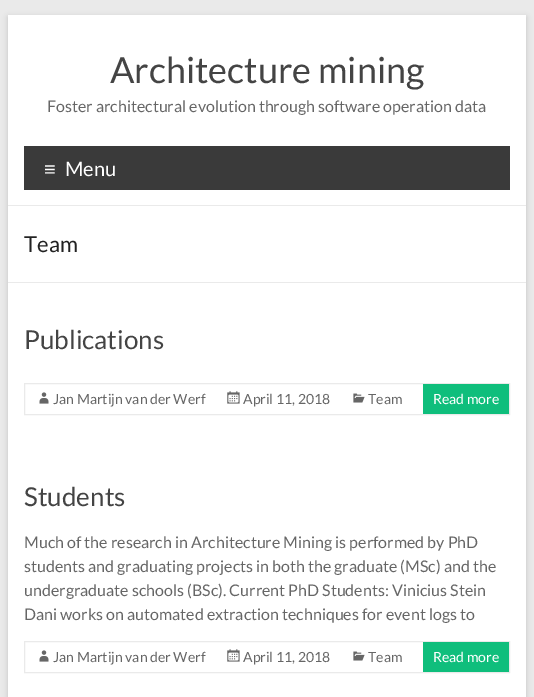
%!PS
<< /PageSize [534 697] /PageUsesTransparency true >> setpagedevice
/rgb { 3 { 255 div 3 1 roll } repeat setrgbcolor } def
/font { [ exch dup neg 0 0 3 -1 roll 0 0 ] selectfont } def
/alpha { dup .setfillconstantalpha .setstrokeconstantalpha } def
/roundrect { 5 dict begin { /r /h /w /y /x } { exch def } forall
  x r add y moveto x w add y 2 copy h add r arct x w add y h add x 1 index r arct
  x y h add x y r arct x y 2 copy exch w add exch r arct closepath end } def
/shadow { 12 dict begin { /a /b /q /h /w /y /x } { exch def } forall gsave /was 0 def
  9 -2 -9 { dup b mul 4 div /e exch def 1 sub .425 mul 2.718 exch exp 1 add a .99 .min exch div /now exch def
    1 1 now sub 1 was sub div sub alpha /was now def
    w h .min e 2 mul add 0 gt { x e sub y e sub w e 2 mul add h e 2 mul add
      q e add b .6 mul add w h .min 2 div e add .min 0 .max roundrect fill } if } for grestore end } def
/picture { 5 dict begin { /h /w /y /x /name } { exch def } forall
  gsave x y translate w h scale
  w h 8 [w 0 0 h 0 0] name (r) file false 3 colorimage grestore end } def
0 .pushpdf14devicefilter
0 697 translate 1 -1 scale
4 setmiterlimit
234 234 234 rgb
0 0 534 697 rectfill
100 100 100 rgb
8 17 518 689 0 3 0.3 shadow
[
  [8 15 518 682 255 255 255]
  [8 205 518 1 234 234 234]
  [24 146 486 44 58 58 58]
  [8 282 518 1 234 234 234]
] { aload pop rgb rectfill } forall
24.5 383.5 485 31 rectstroke
(img/1.rgb) 39 392 10 12 picture
(img/2.rgb) 227 391 13 13 picture
(img/3.rgb) 353 393 12 10 picture
15 190 124 rgb
423 384 86 30 rectfill
234 234 234 rgb
24.5 641.5 485 31 rectstroke
(img/1.rgb) 39 650 10 12 picture
(img/2.rgb) 227 649 13 13 picture
(img/3.rgb) 353 651 12 10 picture
15 190 124 rgb
423 642 86 30 rectfill
/Lato-Regular 36 font
68 68 68 rgb
110 83 moveto (Architecture mining) show
/Lato-Regular 16 font
102 102 102 rgb
47 112 moveto (Foster architectural evolution through software operation data) show
/LiberationSans-Regular 20 font
255 255 255 rgb
44 176 moveto (≡) show
/Lato-Regular 20 font
65 176 moveto (Menu) show
/Lato-Regular 22 font
34 34 34 rgb
24 252 moveto (Team) show
/Lato-Regular 26 font
68 68 68 rgb
24 349 moveto (Publications) show
/Lato-Regular 14 font
102 102 102 rgb
[
  [(Jan Martijn van der Werf) 53 404]
  [(April 11, 2018) 243 404]
  [(Team) 368 404]
] { aload pop moveto show } forall
255 255 255 rgb
433 404 moveto (Read more) show
/Lato-Regular 26 font
68 68 68 rgb
24 506 moveto (Students) show
/Lato-Regular 16 font
102 102 102 rgb
[
  [(Much of the research in Architecture Mining is performed by PhD) 24 548]
  [(students and graduating projects in both the graduate \(MSc\) and the) 24 572]
  [(undergraduate schools \(BSc\). Current PhD Students: Vinicius Stein) 24 596]
  [(Dani works on automated extraction techniques for event logs to) 24 620]
] { aload pop moveto show } forall
/Lato-Regular 14 font
[
  [(Jan Martijn van der Werf) 53 662]
  [(April 11, 2018) 243 662]
  [(Team) 368 662]
] { aload pop moveto show } forall
255 255 255 rgb
433 662 moveto (Read more) show
.poppdf14devicefilter showpage
